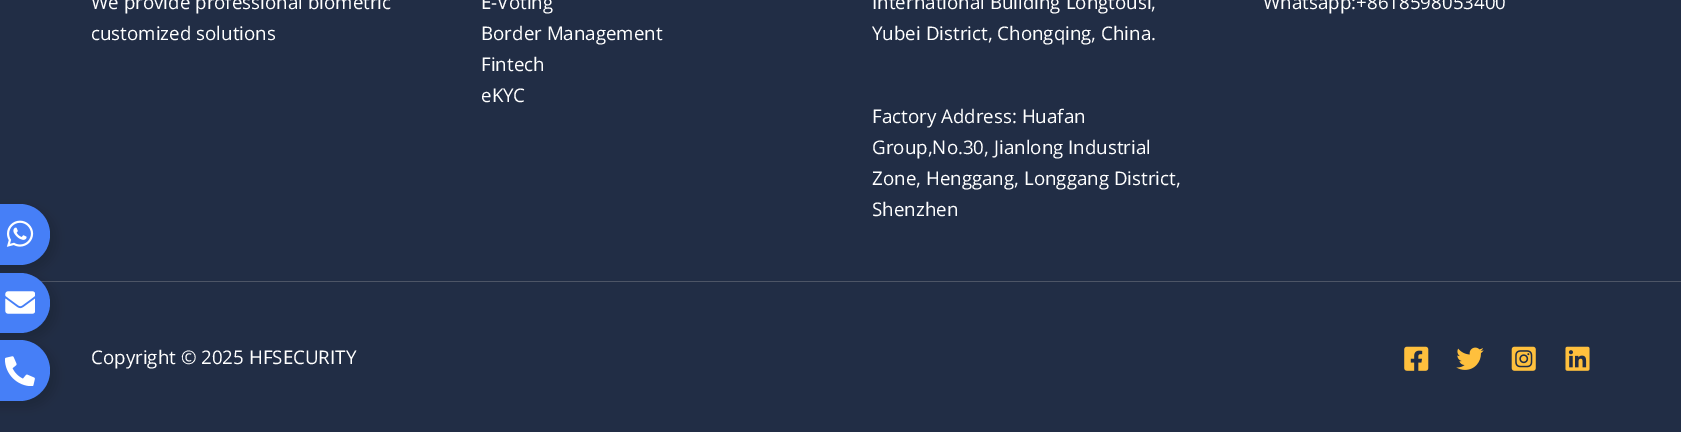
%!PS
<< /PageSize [1681 432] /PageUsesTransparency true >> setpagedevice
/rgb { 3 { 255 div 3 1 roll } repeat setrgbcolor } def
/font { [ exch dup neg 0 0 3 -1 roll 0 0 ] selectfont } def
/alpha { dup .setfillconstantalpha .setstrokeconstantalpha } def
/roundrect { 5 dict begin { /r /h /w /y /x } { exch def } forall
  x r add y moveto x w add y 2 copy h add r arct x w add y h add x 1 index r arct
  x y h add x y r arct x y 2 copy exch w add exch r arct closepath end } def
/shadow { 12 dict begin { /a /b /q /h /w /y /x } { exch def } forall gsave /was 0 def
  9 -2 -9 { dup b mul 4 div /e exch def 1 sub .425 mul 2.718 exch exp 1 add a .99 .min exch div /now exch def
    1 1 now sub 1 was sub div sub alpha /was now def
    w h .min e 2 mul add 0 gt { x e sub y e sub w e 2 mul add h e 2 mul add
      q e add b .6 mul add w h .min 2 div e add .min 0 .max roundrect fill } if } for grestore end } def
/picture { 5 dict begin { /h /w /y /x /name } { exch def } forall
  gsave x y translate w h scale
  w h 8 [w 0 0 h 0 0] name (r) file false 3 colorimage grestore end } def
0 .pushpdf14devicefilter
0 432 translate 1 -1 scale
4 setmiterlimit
33 45 69 rgb
0 0 1681 432 rectfill
77 85 102 rgb
40 281 1641 1 rectfill
0 0 0 rgb
-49 209 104 61 30.5 6 0.15 shadow
70 127 247 rgb
-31 204 moveto 19.5 204 lineto 36.5 204 50 217.5 50 234.5 curveto 50 251.5 36.5 265 19.5 265 curveto -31 265 lineto closepath fill
(img/1.rgb) 6 220 28 27 picture
0 0 0 rgb
-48 278 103 60 30 6 0.15 shadow
70 127 247 rgb
-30 273 moveto 20 273 lineto 36.5 273 50 286.5 50 303 curveto 50 319.5 36.5 333 20 333 curveto -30 333 lineto closepath fill
(img/2.rgb) 5 291 30 23 picture
0 0 0 rgb
-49 345 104 61 30.5 6 0.15 shadow
70 127 247 rgb
-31 340 moveto 19.5 340 lineto 36.5 340 50 353.5 50 370.5 curveto 50 387.5 36.5 401 19.5 401 curveto -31 401 lineto closepath fill
(img/3.rgb) 5 356 30 30 picture
(img/4.rgb) 1404 346 25 25 picture
(img/5.rgb) 1456 347 28 23 picture
(img/6.rgb) 1511 346 25 25 picture
(img/7.rgb) 1565 346 25 25 picture
/OpenSans-Regular 18.75 font
255 255 255 rgb
[
  [(We provide professional biometric) 91 9]
  [(customized solutions) 91 40]
  [(E-Voting) 481 9]
  [(Border Management) 481 40]
  [(Fintech) 481 71]
  [(eKYC) 481 102]
  [(International Building Longtousi,) 872 9]
  [(Yubei District, Chongqing, China.) 872 40]
  [(Factory Address: Huafan) 872 123]
  [(Group,No.30, Jianlong Industrial) 872 154]
  [(Zone, Henggang, Longgang District,) 872 185]
  [(Shenzhen) 872 216]
  [(Whatsapp:+8618598053400) 1263 9]
  [(Copyright © 2025 HFSECURITY) 91 364]
] { aload pop moveto show } forall
.poppdf14devicefilter showpage
